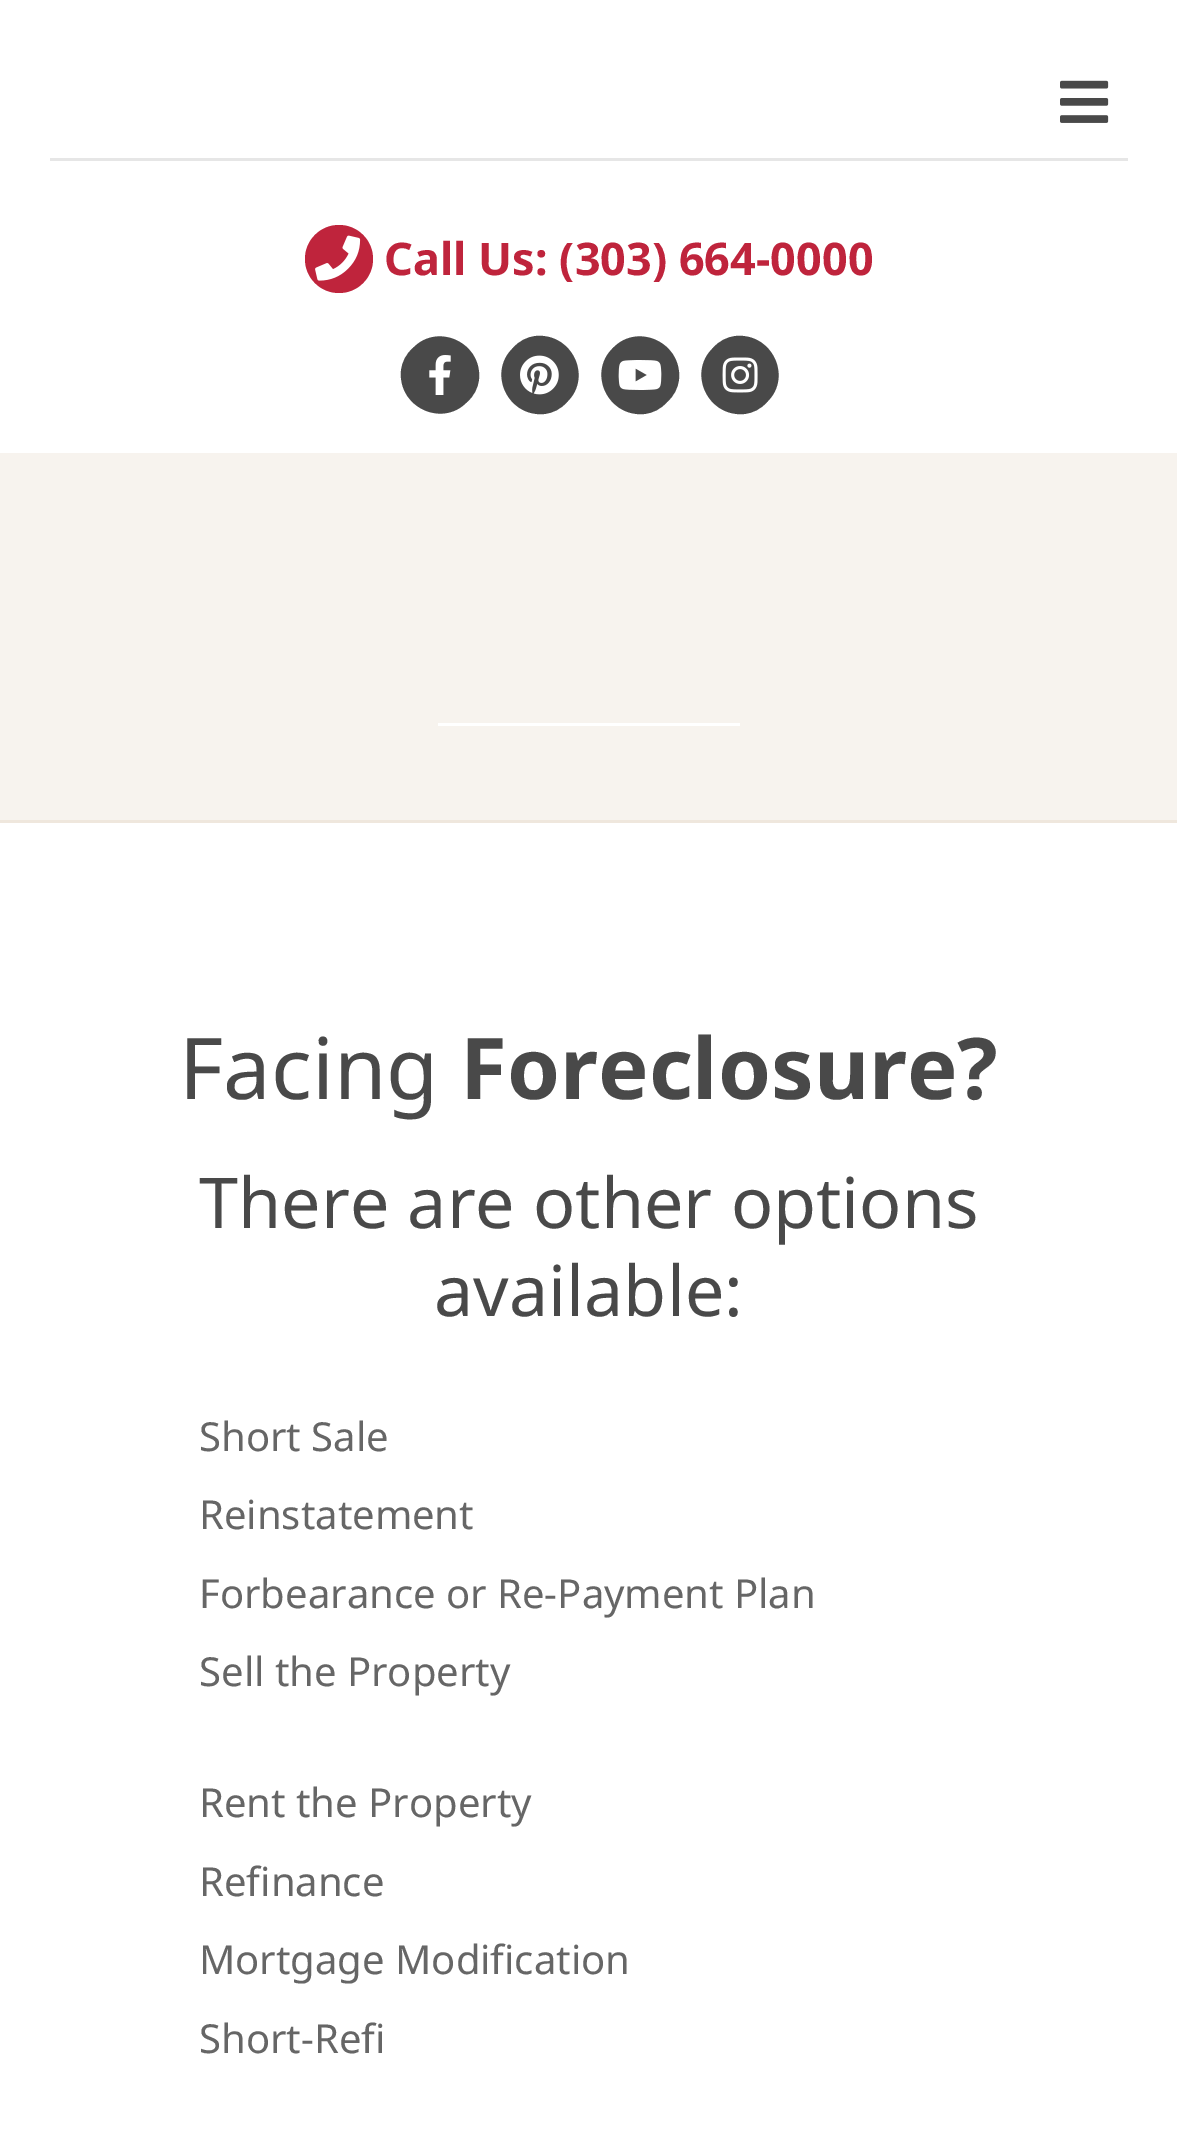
%!PS
<< /PageSize [1177 2144] >> setpagedevice
/rgb { 3 { 255 div 3 1 roll } repeat setrgbcolor } def
/font { [ exch dup neg 0 0 3 -1 roll 0 0 ] selectfont } def
/circle { newpath 0 360 arc closepath } def
/picture { 5 dict begin { /h /w /y /x /name } { exch def } forall
  gsave x y translate w h scale
  w h 8 [w 0 0 h 0 0] name (r) file false 3 colorimage grestore end } def
0 2144 translate 1 -1 scale
4 setmiterlimit
255 255 255 rgb
0 0 1177 2144 rectfill
(img/1.rgb) 1060 80 49 43 picture
230 230 230 rgb
50 158 1078 3 rectfill
191 36 60 rgb
339 259 34 circle fill
(img/2.rgb) 315 235 46 46 picture
73 73 73 rgb
413 348 moveto 438 322 482 343 479 379 curveto 478 388 474 396 467 402 curveto 442 428 398 407 401 371 curveto 402 362 406 354 413 348 curveto closepath fill
(img/3.rgb) 429 355 22 40 picture
513 348 moveto 519 341 527 337 536 336 curveto 572 333 593 377 567 402 curveto 561 409 553 413 544 414 curveto 508 417 487 373 513 348 curveto closepath fill
(img/4.rgb) 520 355 39 40 picture
613 348 moveto 638 322 682 343 679 379 curveto 678 388 674 396 667 402 curveto 661 409 653 413 644 414 curveto 608 417 587 373 613 348 curveto closepath fill
(img/5.rgb) 618 360 44 30 picture
713 348 moveto 719 341 727 337 736 336 curveto 772 333 793 377 767 402 curveto 761 409 753 413 744 414 curveto 708 417 687 373 713 348 curveto closepath fill
(img/6.rgb) 722 357 36 36 picture
[
  [0 453 1177 367 247 243 238]
  [0 820 1177 3 239 231 221]
  [438 723 302 3 255 255 255]
] { aload pop rgb rectfill } forall
/NotoSans-Bold 45 font
191 36 60 rgb
384 275 moveto (Call Us: \(303\) 664-0000) show
/NotoSans-Regular 85 font
73 73 73 rgb
179 1099 moveto (Facing) show
/NotoSans-Bold 85 font
460 1099 moveto (Foreclosure?) show
/NotoSans-Regular 70 font
199 1228 moveto (There are other options) show
434 1316 moveto (available:) show
/NotoSans-Regular 40 font
102 102 102 rgb
[
  [(Short Sale) 199 1451]
  [(Reinstatement) 199 1529]
  [(Forbearance or Re-Payment Plan) 199 1608]
  [(Sell the Property) 199 1686]
  [(Rent the Property) 199 1817]
  [(Refinance) 199 1896]
  [(Mortgage Modification) 199 1974]
  [(Short-Refi) 199 2053]
] { aload pop moveto show } forall
showpage
